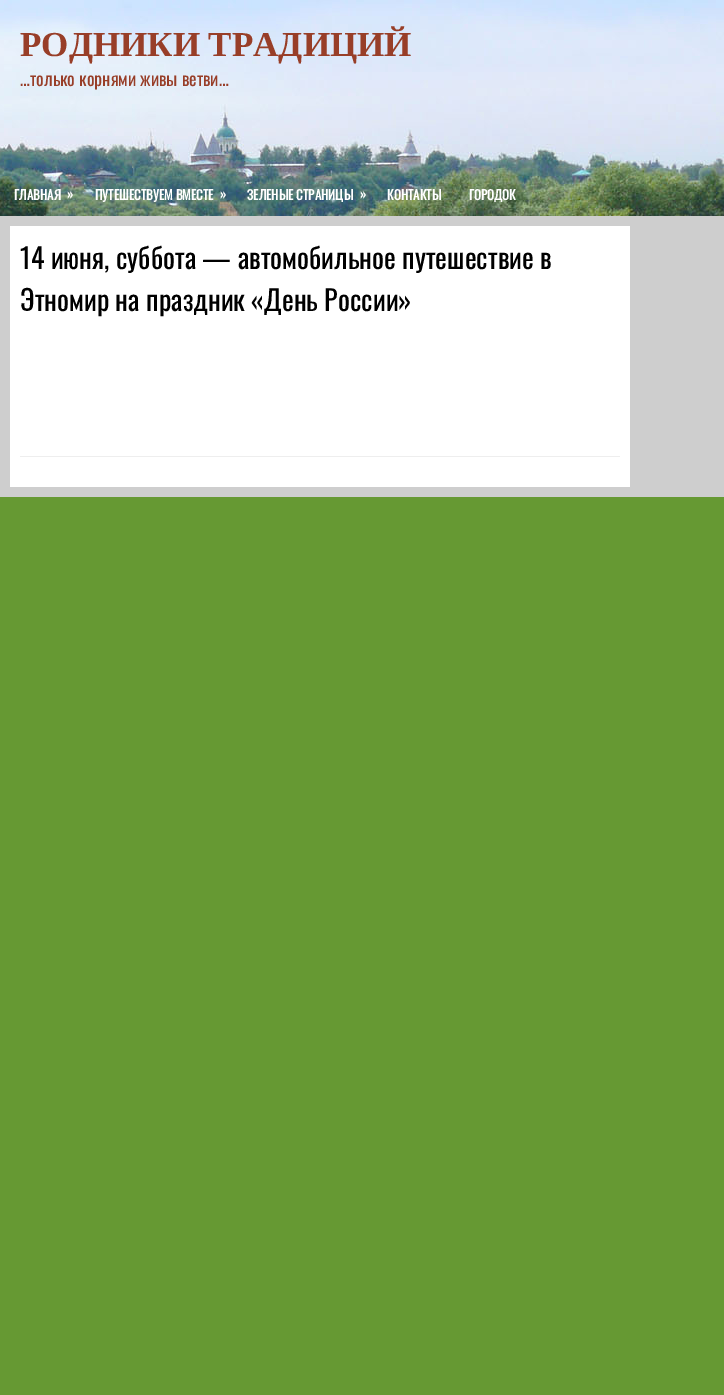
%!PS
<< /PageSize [724 1395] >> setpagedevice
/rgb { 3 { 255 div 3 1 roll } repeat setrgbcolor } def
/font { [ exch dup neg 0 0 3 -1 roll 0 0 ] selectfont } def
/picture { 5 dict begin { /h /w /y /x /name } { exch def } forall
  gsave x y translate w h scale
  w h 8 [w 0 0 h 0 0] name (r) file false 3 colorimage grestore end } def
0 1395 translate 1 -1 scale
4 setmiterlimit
102 153 51 rgb
0 0 724 1395 rectfill
(img/1.rgb) 0 0 724 216 picture
[
  [0 216 724 281 206 206 206]
  [10 226 620 261 255 255 255]
  [20 456 600 1 238 238 238]
] { aload pop rgb rectfill } forall
/LiberationSerif-Bold 35 font
152 62 40 rgb
20 56 moveto (РОДНИКИ ТРАДИЦИЙ) show
/Oswald-Regular 18 font
20 86 moveto (…только корнями живы ветви…) show
/Oswald-Bold 13 font
255 255 255 rgb
[
  [(ГЛАВНАЯ) 14 200]
  [(») 67 199]
  [(ПУТЕШЕСТВУЕМ ВМЕСТЕ) 95 200]
  [(») 220 199]
  [(ЗЕЛЕНЫЕ СТРАНИЦЫ) 247 200]
  [(») 360 199]
  [(КОНТАКТЫ) 387 200]
  [(ГОРОДОК) 469 200]
] { aload pop moveto show } forall
/Oswald-Regular 28 font
0 0 0 rgb
20 269 moveto (14 июня, суббота — автомобильное путешествие в) show
20 311 moveto (Этномир на праздник «День России») show
showpage
